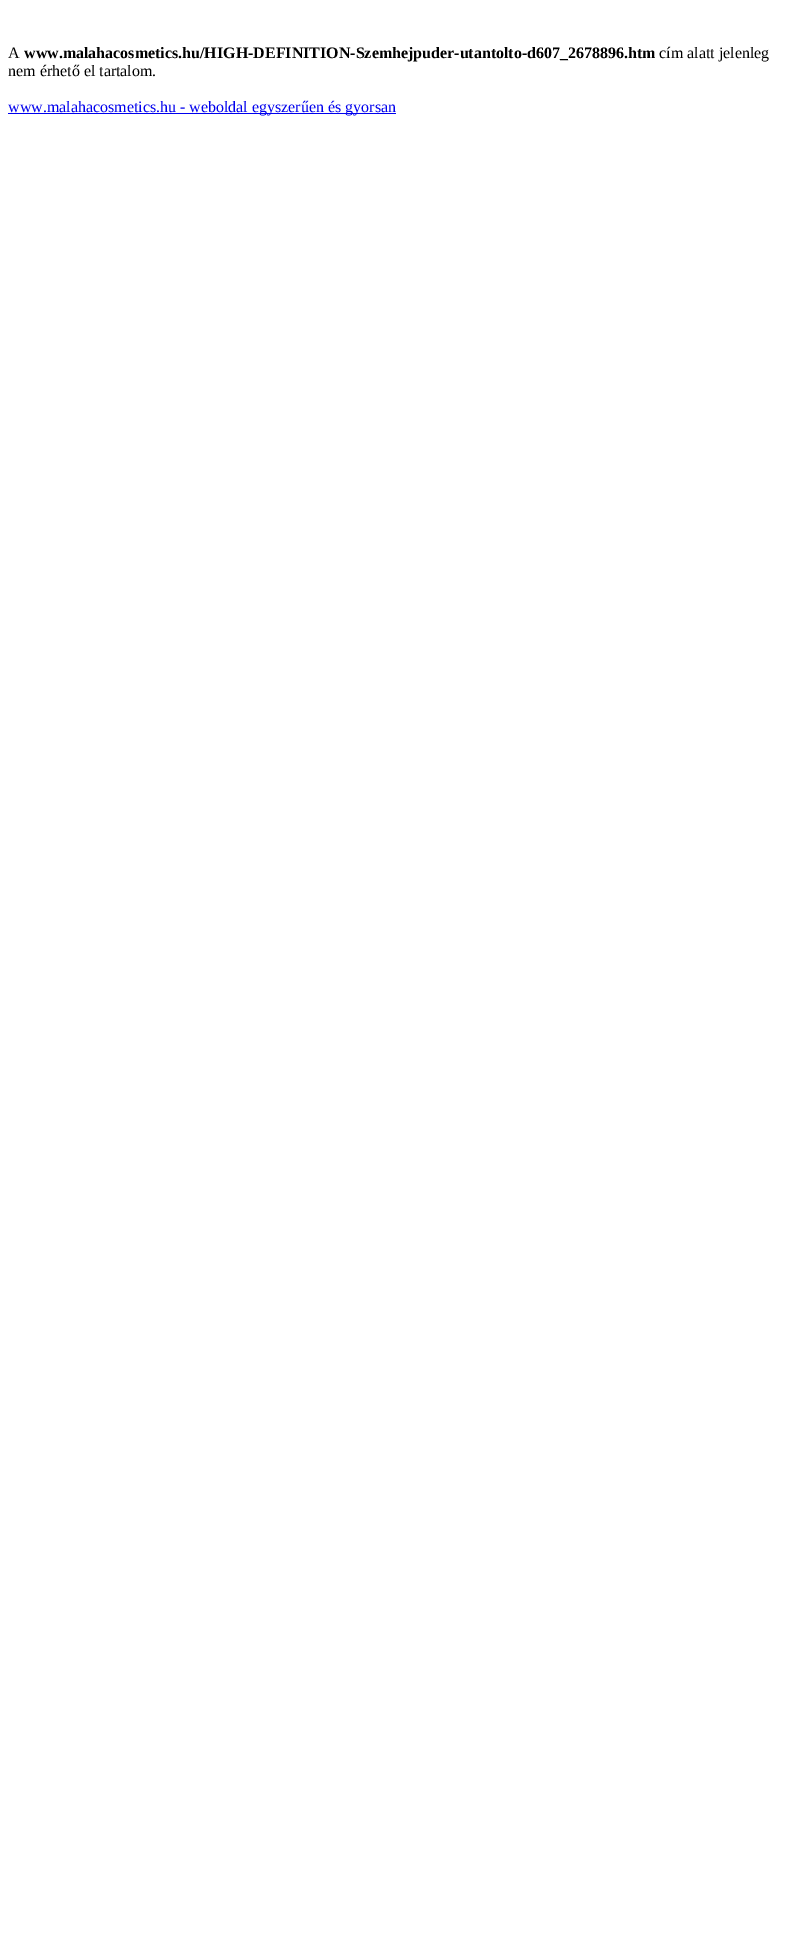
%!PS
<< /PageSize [792 1943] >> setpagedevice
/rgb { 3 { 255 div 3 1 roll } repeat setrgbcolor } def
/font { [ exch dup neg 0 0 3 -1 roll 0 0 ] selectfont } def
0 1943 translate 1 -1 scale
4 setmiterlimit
255 255 255 rgb
0 0 792 1943 rectfill
0 0 238 rgb
8 113 388 1 rectfill
/LiberationSerif-Regular 16 font
0 0 0 rgb
8 58 moveto (A) show
/LiberationSerif-Bold 16 font
24 58 moveto (www.malahacosmetics.hu/HIGH-DEFINITION-Szemhejpuder-utantolto-d607_2678896.htm) show
/LiberationSerif-Regular 16 font
659 58 moveto (cím alatt jelenleg) show
8 76 moveto (nem érhető el tartalom.) show
0 0 238 rgb
8 112 moveto (www.malahacosmetics.hu - weboldal egyszerűen és gyorsan) show
showpage
